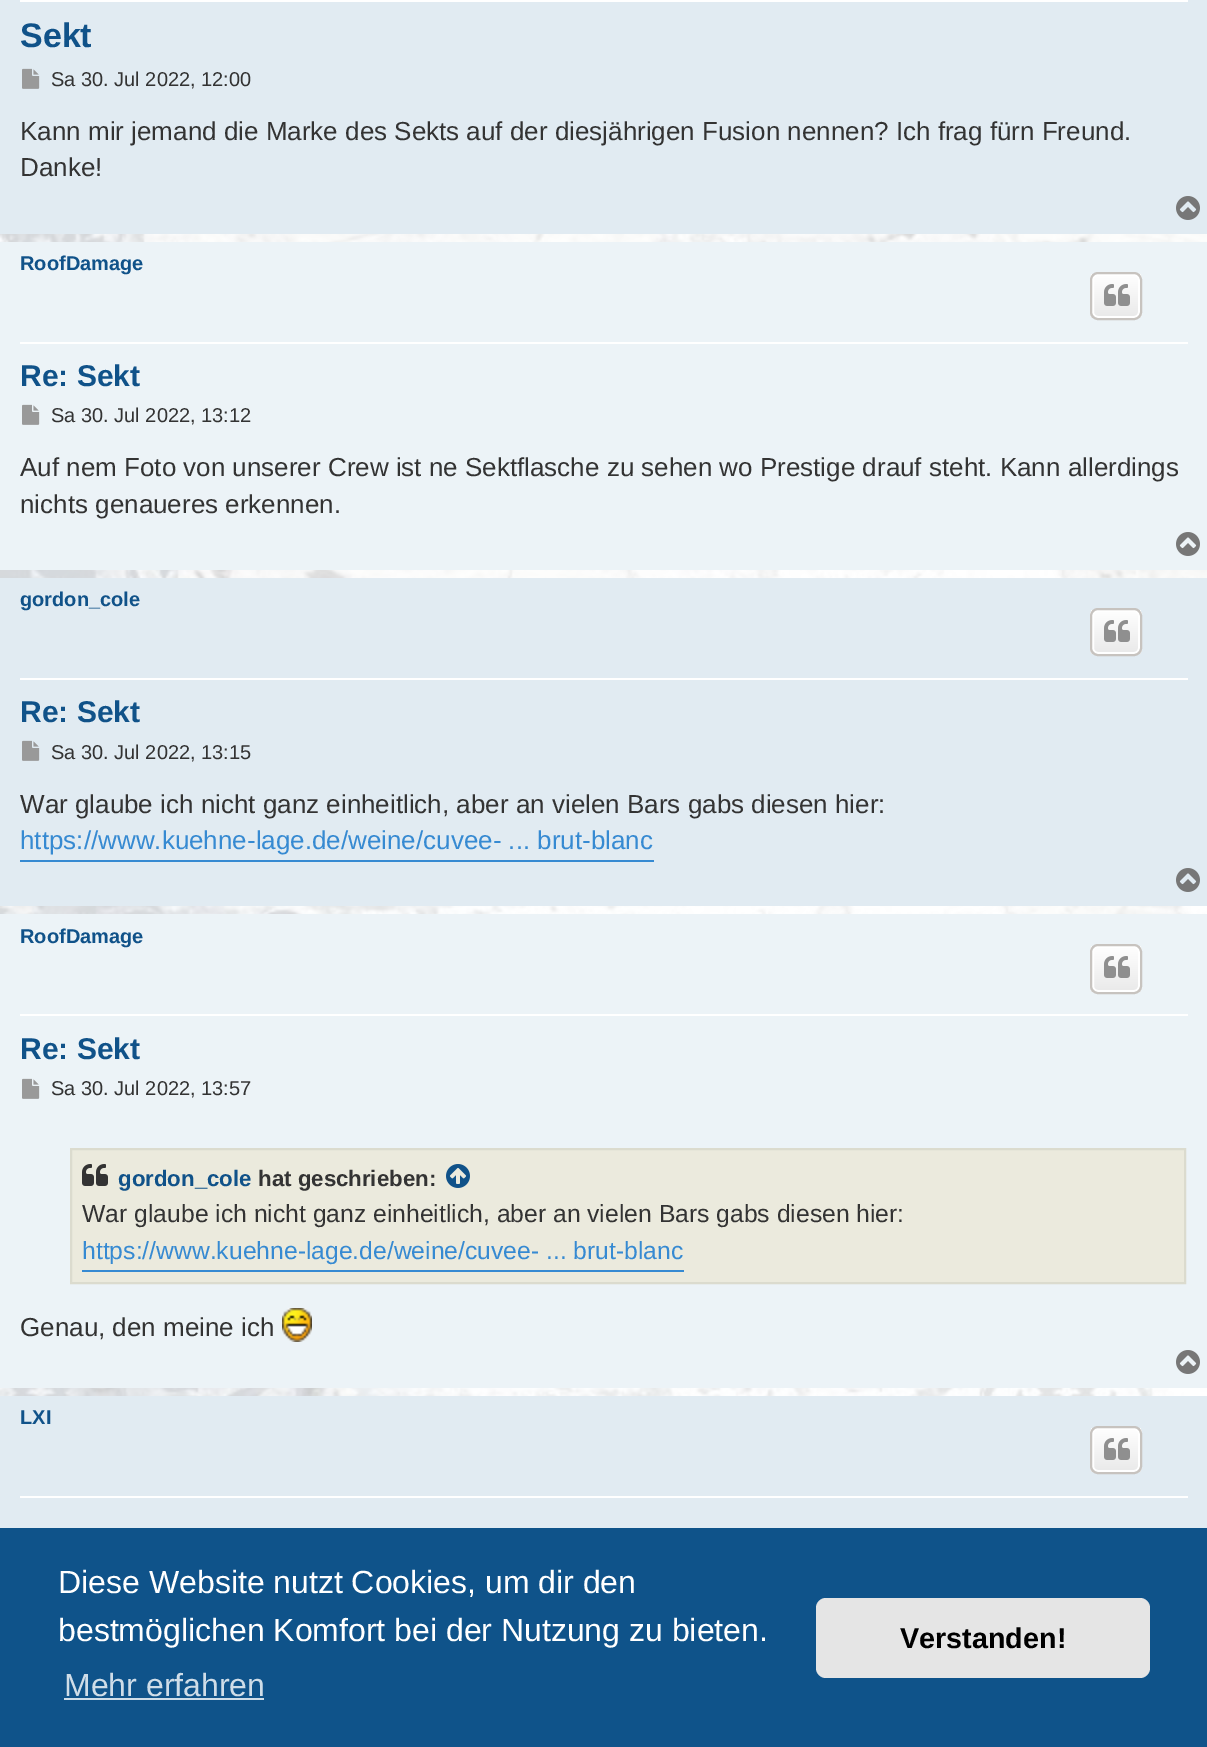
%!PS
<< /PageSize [1207 1747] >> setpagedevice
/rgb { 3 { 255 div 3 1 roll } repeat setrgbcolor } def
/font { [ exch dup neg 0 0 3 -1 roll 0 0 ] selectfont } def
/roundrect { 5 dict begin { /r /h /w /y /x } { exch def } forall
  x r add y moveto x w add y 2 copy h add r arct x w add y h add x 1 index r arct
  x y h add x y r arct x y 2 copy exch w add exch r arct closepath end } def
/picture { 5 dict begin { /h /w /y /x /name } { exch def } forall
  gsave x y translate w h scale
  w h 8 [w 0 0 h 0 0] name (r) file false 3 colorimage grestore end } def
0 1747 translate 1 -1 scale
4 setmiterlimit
255 255 255 rgb
0 0 1207 1747 rectfill
(img/1.rgb) 0 234 1207 1162 picture
225 235 242 rgb
0 0 1207 234 rectfill
255 255 255 rgb
20 0 1168 2 rectfill
(img/2.rgb) 22 68 18 21 picture
(img/3.rgb) 1176 196 24 24 picture
236 243 247 rgb
0 242 1207 328 rectfill
255 255 255 rgb
20 342 1168 2 rectfill
gsave
1090 272 52 48 8 roundrect clip newpath
gsave 1090 274 moveto 1142 274 lineto 1142 318 lineto 1090 318 lineto closepath clip newpath
<< /ShadingType 2 /ColorSpace /DeviceRGB /Coords [1116 274 1116 318] /Extend [true true] /Function << /FunctionType 2 /Domain [0 1] /C0 [1 1 1] /C1 [0.914 0.914 0.914] /N 1 >> >> shfill grestore
grestore
2 setlinewidth
1093 275 46 42 5 roundrect stroke
199 195 191 rgb
1091 273 50 46 7 roundrect stroke
(img/4.rgb) 1104 284 26 22 picture
(img/5.rgb) 22 404 18 21 picture
(img/6.rgb) 1176 532 24 24 picture
225 235 242 rgb
0 578 1207 328 rectfill
255 255 255 rgb
20 678 1168 2 rectfill
gsave
1090 608 52 48 8 roundrect clip newpath
gsave 1090 610 moveto 1142 610 lineto 1142 654 lineto 1090 654 lineto closepath clip newpath
<< /ShadingType 2 /ColorSpace /DeviceRGB /Coords [1116 610 1116 654] /Extend [true true] /Function << /FunctionType 2 /Domain [0 1] /C0 [1 1 1] /C1 [0.914 0.914 0.914] /N 1 >> >> shfill grestore
grestore
1093 611 46 42 5 roundrect stroke
199 195 191 rgb
1091 609 50 46 7 roundrect stroke
(img/4.rgb) 1104 620 26 22 picture
(img/2.rgb) 22 740 18 21 picture
54 138 210 rgb
20 860 634 2 rectfill
(img/3.rgb) 1176 868 24 24 picture
236 243 247 rgb
0 914 1207 474 rectfill
255 255 255 rgb
20 1014 1168 2 rectfill
gsave
1090 944 52 50 8 roundrect clip newpath
gsave 1090 946 moveto 1142 946 lineto 1142 992 lineto 1090 992 lineto closepath clip newpath
<< /ShadingType 2 /ColorSpace /DeviceRGB /Coords [1116 946 1116 992] /Extend [true true] /Function << /FunctionType 2 /Domain [0 1] /C0 [1 1 1] /C1 [0.914 0.914 0.914] /N 1 >> >> shfill grestore
grestore
1093 947 46 44 5 roundrect stroke
199 195 191 rgb
1091 945 50 48 7 roundrect stroke
(img/7.rgb) 1104 956 26 22 picture
(img/5.rgb) 22 1078 18 21 picture
235 234 221 rgb
71 1149 moveto 1185 1149 lineto 1185 1283 lineto 71 1283 lineto closepath gsave fill grestore
219 219 206 rgb
stroke
(img/8.rgb) 82 1164 26 22 picture
(img/9.rgb) 446 1164 24 24 picture
54 138 210 rgb
82 1270 602 2 rectfill
(img/10.rgb) 282 1308 30 34 picture
(img/6.rgb) 1176 1350 24 24 picture
225 235 242 rgb
0 1396 1207 132 rectfill
255 255 255 rgb
20 1496 1168 2 rectfill
gsave
1090 1426 52 48 8 roundrect clip newpath
gsave 1090 1428 moveto 1142 1428 lineto 1142 1472 lineto 1090 1472 lineto closepath clip newpath
<< /ShadingType 2 /ColorSpace /DeviceRGB /Coords [1116 1428 1116 1472] /Extend [true true] /Function << /FunctionType 2 /Domain [0 1] /C0 [1 1 1] /C1 [0.914 0.914 0.914] /N 1 >> >> shfill grestore
grestore
1093 1429 46 42 5 roundrect stroke
199 195 191 rgb
1091 1427 50 46 7 roundrect stroke
(img/4.rgb) 1104 1438 26 22 picture
15 83 138 rgb
0 1528 1207 219 rectfill
207 221 232 rgb
64 1698 200 2 rectfill
229 229 229 rgb
816 1598 334 80 10 roundrect fill
/LiberationSans-Bold 34 font
16 82 137 rgb
20 47 moveto (Sekt) show
/LiberationSans-Regular 20 font
51 51 51 rgb
51 86 moveto (Sa 30. Jul 2022, 12:00) show
/LiberationSans-Regular 26 font
20 140 moveto (Kann mir jemand die Marke des Sekts auf der diesjährigen Fusion nennen? Ich frag fürn Freund.) show
20 176 moveto (Danke!) show
/LiberationSans-Bold 20 font
16 82 137 rgb
20 270 moveto (RoofDamage) show
/LiberationSans-Bold 30 font
20 386 moveto (Re: Sekt) show
/LiberationSans-Regular 20 font
51 51 51 rgb
51 422 moveto (Sa 30. Jul 2022, 13:12) show
/LiberationSans-Regular 26 font
20 476 moveto (Auf nem Foto von unserer Crew ist ne Sektflasche zu sehen wo Prestige drauf steht. Kann allerdings) show
20 513 moveto (nichts genaueres erkennen.) show
/LiberationSans-Bold 20 font
16 82 137 rgb
20 606 moveto (gordon_cole) show
/LiberationSans-Bold 30 font
20 722 moveto (Re: Sekt) show
/LiberationSans-Regular 20 font
51 51 51 rgb
51 759 moveto (Sa 30. Jul 2022, 13:15) show
/LiberationSans-Regular 26 font
20 813 moveto (War glaube ich nicht ganz einheitlich, aber an vielen Bars gabs diesen hier:) show
54 138 210 rgb
20 849 moveto (https://www.kuehne-lage.de/weine/cuvee- ... brut-blanc) show
/LiberationSans-Bold 20 font
16 82 137 rgb
20 943 moveto (RoofDamage) show
/LiberationSans-Bold 30 font
20 1059 moveto (Re: Sekt) show
/LiberationSans-Regular 20 font
51 51 51 rgb
51 1095 moveto (Sa 30. Jul 2022, 13:57) show
/LiberationSans-Bold 22.25 font
16 82 137 rgb
118 1186 moveto (gordon_cole) show
51 51 51 rgb
258 1186 moveto (hat geschrieben:) show
/LiberationSans-Regular 24.7 font
82 1222 moveto (War glaube ich nicht ganz einheitlich, aber an vielen Bars gabs diesen hier:) show
54 138 210 rgb
82 1259 moveto (https://www.kuehne-lage.de/weine/cuvee- ... brut-blanc) show
/LiberationSans-Regular 26 font
51 51 51 rgb
20 1336 moveto (Genau, den meine ich) show
/LiberationSans-Bold 20 font
16 82 137 rgb
20 1424 moveto (LXI) show
/LiberationSans-Regular 32 font
255 255 255 rgb
58 1593 moveto (Diese Website nutzt Cookies, um dir den) show
58 1641 moveto (bestmöglichen Komfort bei der Nutzung zu bieten.) show
207 221 232 rgb
64 1696 moveto (Mehr erfahren) show
/LiberationSans-Bold 28.75 font
0 0 0 rgb
900 1648 moveto (Verstanden!) show
showpage
